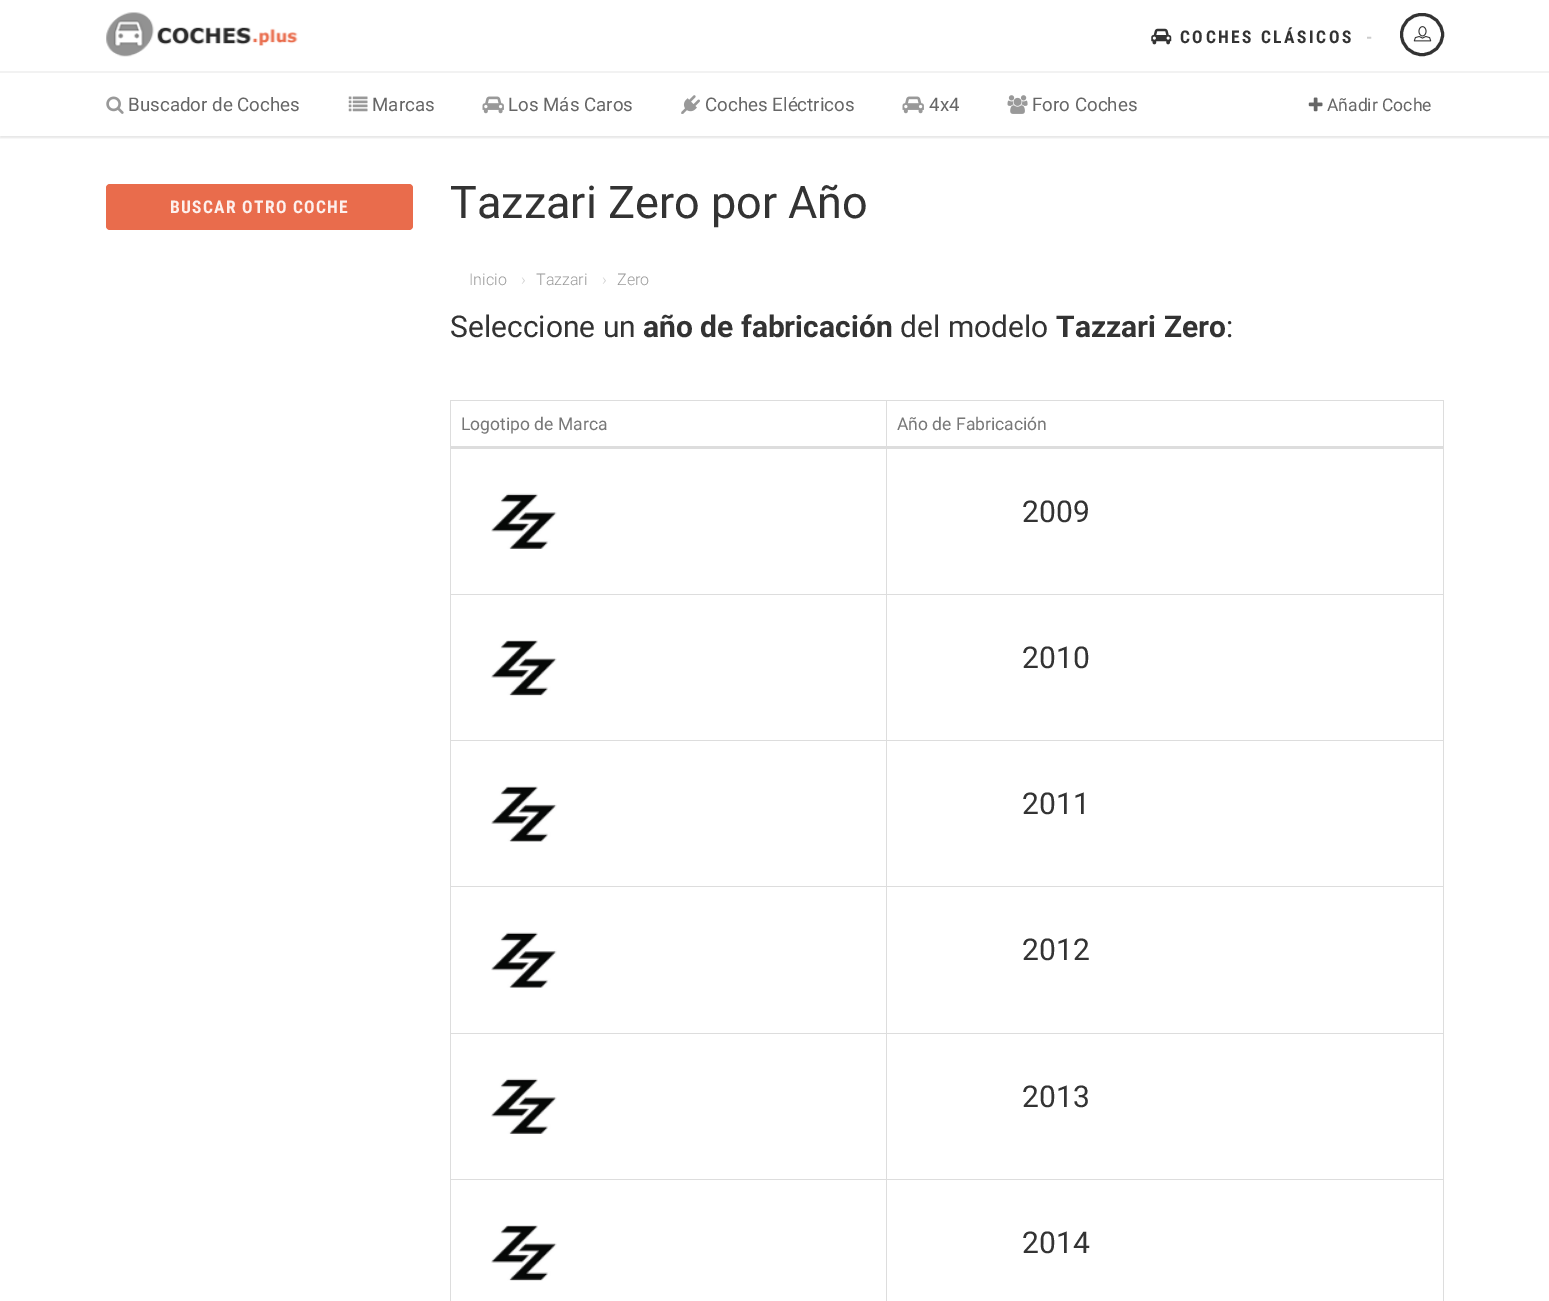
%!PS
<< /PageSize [1549 1301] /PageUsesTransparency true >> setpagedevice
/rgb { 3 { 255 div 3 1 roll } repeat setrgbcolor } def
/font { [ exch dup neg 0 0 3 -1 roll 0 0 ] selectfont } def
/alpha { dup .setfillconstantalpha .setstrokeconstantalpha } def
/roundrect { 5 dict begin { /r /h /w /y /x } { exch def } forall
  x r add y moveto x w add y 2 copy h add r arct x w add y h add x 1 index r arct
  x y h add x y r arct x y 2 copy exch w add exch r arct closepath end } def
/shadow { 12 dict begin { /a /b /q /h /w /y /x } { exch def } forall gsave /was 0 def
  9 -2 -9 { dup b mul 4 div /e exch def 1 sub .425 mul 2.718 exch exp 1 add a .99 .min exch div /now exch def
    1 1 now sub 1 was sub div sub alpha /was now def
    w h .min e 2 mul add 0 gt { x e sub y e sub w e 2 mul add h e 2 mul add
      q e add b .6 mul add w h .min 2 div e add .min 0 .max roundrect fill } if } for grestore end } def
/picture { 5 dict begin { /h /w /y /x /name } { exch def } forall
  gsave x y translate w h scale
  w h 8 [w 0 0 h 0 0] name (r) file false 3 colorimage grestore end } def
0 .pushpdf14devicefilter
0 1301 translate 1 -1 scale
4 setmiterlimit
255 255 255 rgb
0 0 1549 1301 rectfill
gsave
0 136 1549 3 rectclip
0 0 0 rgb
0 73 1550 65 0 1 0.1 shadow
grestore
242 242 242 rgb
0 71 1549 2 rectfill
(img/1.rgb) 106 12 192 45 picture
(img/2.rgb) 1151 28 21 17 picture
51 51 51 rgb
3 setlinewidth
1401.5 14.5 41 40 20 roundrect stroke
(img/3.rgb) 1413 26 19 16 picture
(img/4.rgb) 106 96 18 18 picture
(img/5.rgb) 348 96 20 16 picture
(img/6.rgb) 482 96 22 18 picture
(img/7.rgb) 681 95 19 19 picture
(img/6.rgb) 902 96 22 18 picture
(img/8.rgb) 1007 95 21 19 picture
(img/9.rgb) 1308 97 15 15 picture
233 108 76 rgb
106 184 307 46 4 roundrect fill
[
  [450 400 994 1 221 221 221]
  [1443 400 1 901 221 221 221]
  [450 400 1 901 221 221 221]
  [886 594 558 1 221 221 221]
  [886 740 558 1 221 221 221]
  [886 886 558 1 221 221 221]
  [886 1033 558 1 221 221 221]
  [886 1179 558 1 221 221 221]
  [886 1179 1 122 221 221 221]
  [450 1179 438 1 221 221 221]
  [886 1033 1 147 221 221 221]
  [450 1033 438 1 221 221 221]
  [886 886 1 148 221 221 221]
  [450 886 438 1 221 221 221]
  [886 740 1 148 221 221 221]
  [450 740 438 1 221 221 221]
  [886 594 1 147 221 221 221]
  [450 594 438 1 221 221 221]
  [886 400 1 195 221 221 221]
  [450 446 994 3 221 221 221]
] { aload pop rgb rectfill } forall
(img/10.rgb) 491 493 66 56 picture
(img/11.rgb) 491 640 66 56 picture
(img/12.rgb) 491 786 66 56 picture
(img/13.rgb) 491 932 66 56 picture
(img/10.rgb) 491 1078 66 56 picture
(img/11.rgb) 491 1225 66 56 picture
/RobotoCondensed-Bold 17.5 font
51 51 51 rgb
1180 43 moveto 2.5 0 (COCHES CLÁSICOS) ashow
204 204 204 rgb
1366 43 moveto 2.5 0 (-) ashow
/Roboto-Regular 18.75 font
102 102 102 rgb
[
  [(Buscador de Coches) 128 111]
  [(Marcas) 372 111]
  [(Los Más Caros) 508 111]
  [(Coches Eléctricos) 705 111]
  [(4x4) 929 111]
  [(Foro Coches) 1032 111]
] { aload pop moveto show } forall
/Roboto-Regular 17.5 font
1327 111 moveto (Añadir Coche) show
/RobotoCondensed-Bold 17.5 font
253 240 237 rgb
170 213 moveto 1.25 0 (BUSCAR OTRO COCHE) ashow
/Roboto-Regular 45 font
51 51 51 rgb
450 218 moveto (Tazzari Zero por Año) show
/Roboto-Light 16 font
153 153 153 rgb
469 285 moveto (Inicio) show
204 204 204 rgb
521 285 moveto (›) show
153 153 153 rgb
536 285 moveto (Tazzari) show
204 204 204 rgb
602 285 moveto (›) show
153 153 153 rgb
617 285 moveto (Zero) show
/Roboto-Regular 30 font
51 51 51 rgb
450 337 moveto (Seleccione un) show
/Roboto-Bold 30 font
643 337 moveto (año de fabricación) show
/Roboto-Regular 30 font
900 337 moveto (del modelo) show
/Roboto-Bold 30 font
1056 337 moveto (Tazzari Zero) show
/Roboto-Regular 30 font
1226 337 moveto (:) show
/Roboto-Regular 17.5 font
119 119 119 rgb
461 430 moveto (Logotipo de Marca) show
897 430 moveto (Año de Fabricación) show
/Roboto-Regular 30 font
51 51 51 rgb
[
  [(2009) 1022 522]
  [(2010) 1022 668]
  [(2011) 1022 814]
  [(2012) 1022 960]
  [(2013) 1022 1107]
  [(2014) 1022 1253]
] { aload pop moveto show } forall
.poppdf14devicefilter showpage
